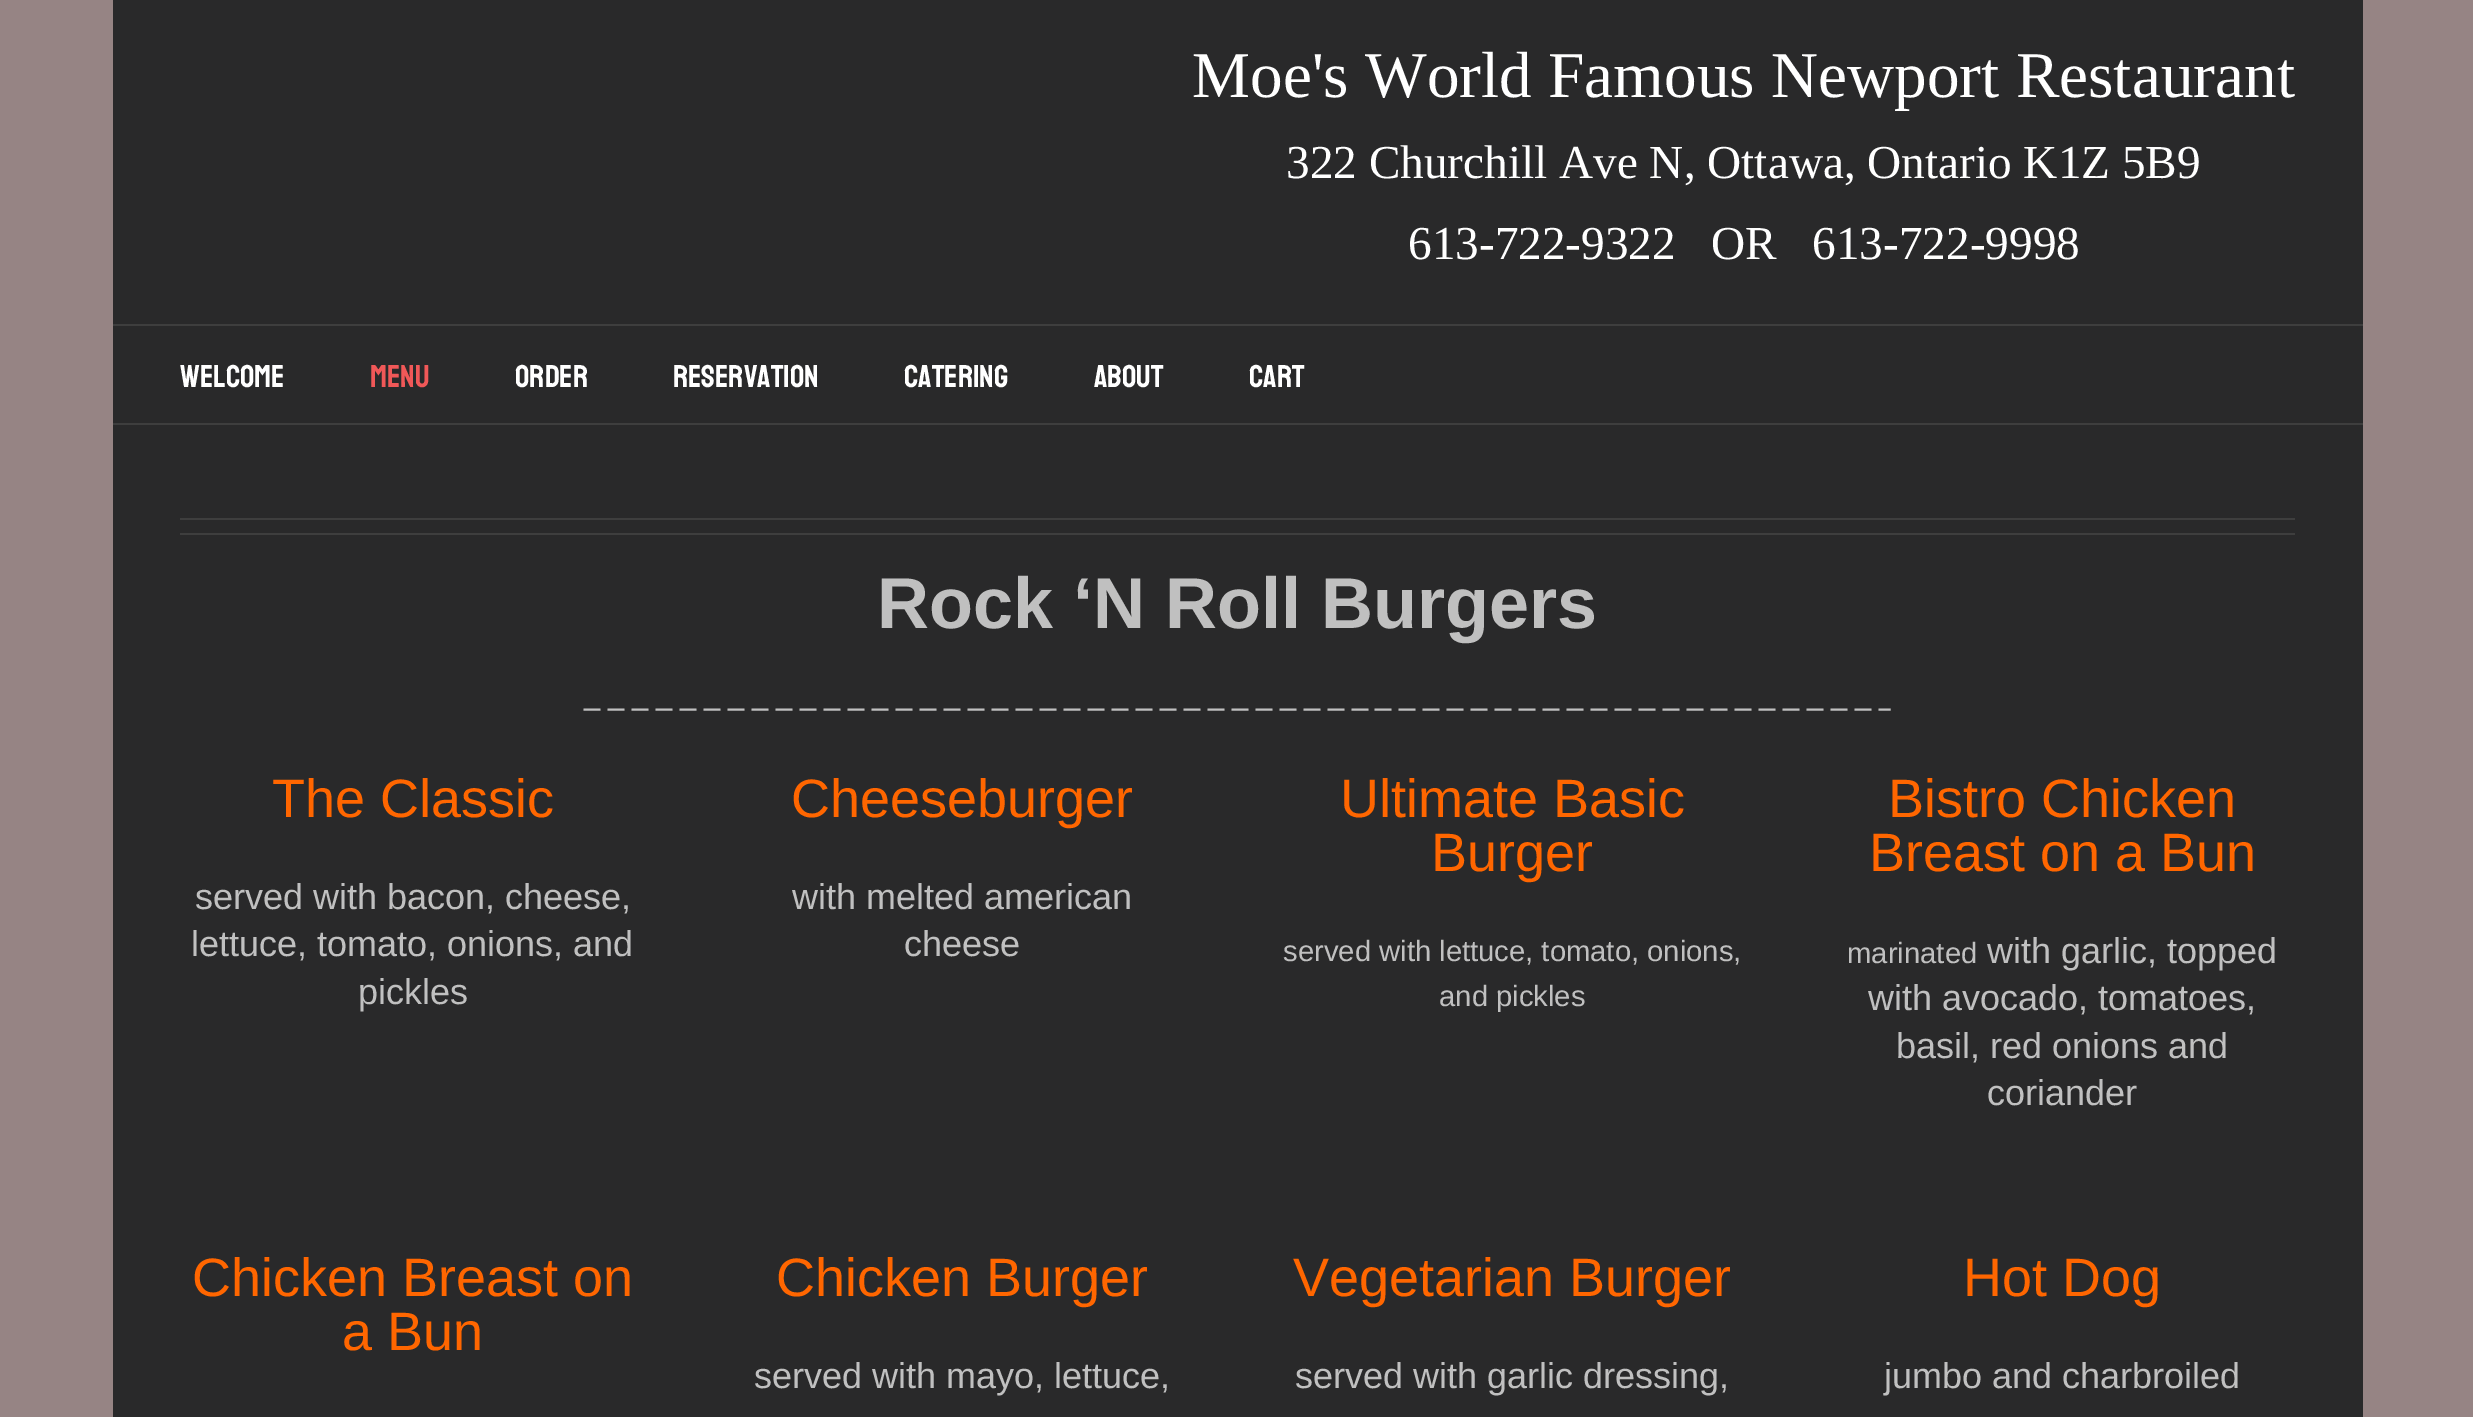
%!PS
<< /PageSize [2473 1417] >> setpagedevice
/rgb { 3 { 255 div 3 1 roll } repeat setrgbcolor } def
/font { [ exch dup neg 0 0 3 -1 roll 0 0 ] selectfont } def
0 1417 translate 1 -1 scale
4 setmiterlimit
150 132 132 rgb
0 0 2473 1417 rectfill
[
  [113 0 2250 1417 41 41 42]
  [113 324 2250 2 62 62 62]
  [113 423 2250 2 62 62 62]
  [180 518 2115 2 62 62 62]
  [180 533 2115 2 62 62 62]
] { aload pop rgb rectfill } forall
/LiberationSerif-Regular 65.25 font
255 255 255 rgb
1192 97 moveto (Moe's World Famous Newport Restaurant) show
/LiberationSerif-Regular 47.25 font
1286 178 moveto (322 Churchill Ave N, Ottawa, Ontario K1Z 5B9) show
1408 259 moveto (613-722-9322   OR   613-722-9998) show
/Bayon-Regular 31.5 font
180 387 moveto (Welcome) show
240 88 88 rgb
370 387 moveto (Menu) show
255 255 255 rgb
[
  [(Order) 515 387]
  [(Reservation) 673 387]
  [(Catering) 904 387]
  [(About) 1094 387]
  [(Cart) 1249 387]
] { aload pop moveto show } forall
/LiberationSans-Bold 72 font
192 192 192 rgb
877 628 moveto (Rock ‘N Roll Burgers) show
/PTSans-Regular 29.25 font
580 718 moveto (——————————————————————————————————————————————————————–) show
/LiberationSans-Regular 54 font
255 102 0 rgb
272 817 moveto (The Classic) show
/LiberationSans-Regular 36 font
192 192 192 rgb
[
  [(served with bacon, cheese,) 195 909]
  [(lettuce, tomato, onions, and) 191 956]
  [(pickles) 358 1004]
] { aload pop moveto show } forall
/LiberationSans-Regular 54 font
255 102 0 rgb
791 817 moveto (Cheeseburger) show
/LiberationSans-Regular 36 font
192 192 192 rgb
792 909 moveto (with melted american) show
904 956 moveto (cheese) show
/LiberationSans-Regular 54 font
255 102 0 rgb
1340 817 moveto (Ultimate Basic) show
1431 871 moveto (Burger) show
/LiberationSans-Regular 29.25 font
192 192 192 rgb
1283 961 moveto (served with lettuce, tomato, onions,) show
1439 1006 moveto (and pickles) show
/LiberationSans-Regular 54 font
255 102 0 rgb
1888 817 moveto (Bistro Chicken) show
1869 871 moveto (Breast on a Bun) show
/LiberationSans-Regular 29.25 font
192 192 192 rgb
1847 963 moveto (marinated) show
/LiberationSans-Regular 36 font
[
  [(with garlic, topped) 1987 963]
  [(with avocado, tomatoes,) 1868 1010]
  [(basil, red onions and) 1896 1058]
  [(coriander) 1987 1105]
] { aload pop moveto show } forall
/LiberationSans-Regular 54 font
255 102 0 rgb
[
  [(Chicken Breast on) 192 1296]
  [(a Bun) 342 1350]
  [(Chicken Burger) 776 1296]
] { aload pop moveto show } forall
/LiberationSans-Regular 36 font
192 192 192 rgb
754 1388 moveto (served with mayo, lettuce,) show
/LiberationSans-Regular 54 font
255 102 0 rgb
1293 1296 moveto (Vegetarian Burger) show
/LiberationSans-Regular 36 font
192 192 192 rgb
1295 1388 moveto (served with garlic dressing,) show
/LiberationSans-Regular 54 font
255 102 0 rgb
1963 1296 moveto (Hot Dog) show
/LiberationSans-Regular 36 font
192 192 192 rgb
1884 1388 moveto (jumbo and charbroiled) show
showpage
